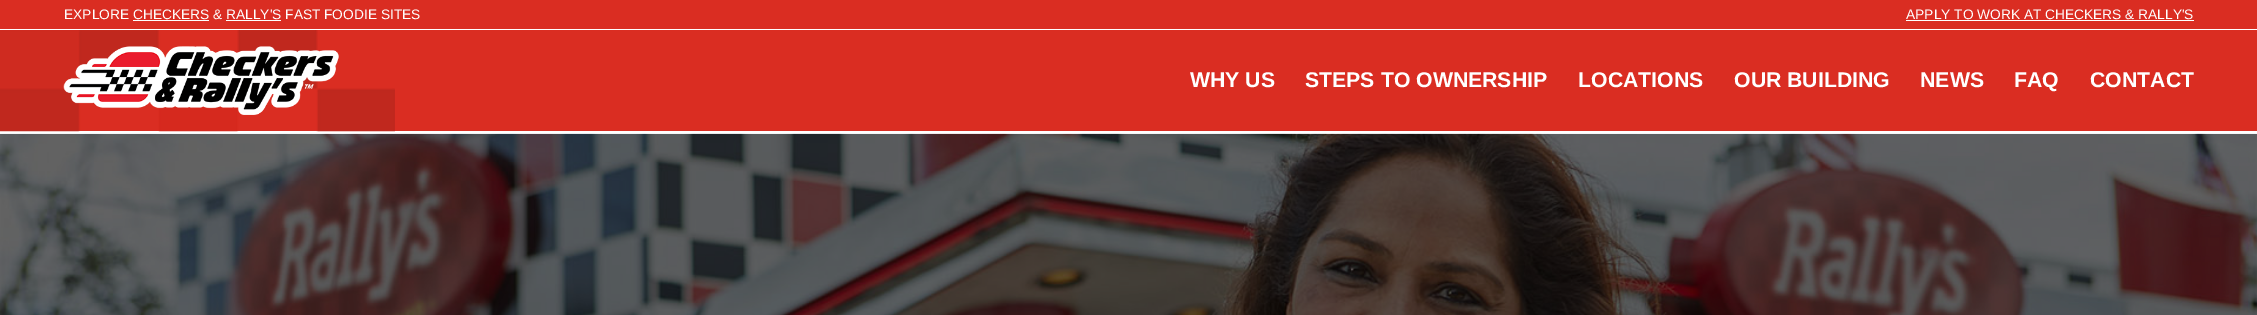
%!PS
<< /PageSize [2257 315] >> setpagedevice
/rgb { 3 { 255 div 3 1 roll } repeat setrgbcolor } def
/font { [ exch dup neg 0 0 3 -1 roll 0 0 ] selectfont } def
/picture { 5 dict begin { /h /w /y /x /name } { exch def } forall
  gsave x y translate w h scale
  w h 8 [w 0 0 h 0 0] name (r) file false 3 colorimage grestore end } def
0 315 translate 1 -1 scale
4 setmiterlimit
218 45 34 rgb
0 0 2257 315 rectfill
[
  [0 131 2257 3 255 255 255]
  [0 29 2257 1 255 255 255]
  [133 20 76 1 255 255 255]
  [226 20 55 1 255 255 255]
  [1906 20 288 1 255 255 255]
] { aload pop rgb rectfill } forall
(img/1.rgb) 0 30 395 102 picture
(img/2.rgb) 63 46 276 69 picture
0 0 0 rgb
0 134 2257 181 rectfill
(img/3.rgb) 0 133 2257 182 picture
/LiberationSans-Regular 13.75 font
255 255 255 rgb
64 19 moveto (EXPLORE CHECKERS & RALLY'S FAST FOODIE SITES) show
1906 19 moveto (APPLY TO WORK AT CHECKERS & RALLY'S) show
/LiberationSans-Bold 21.25 font
[
  [(WHY US) 1190 87]
  [(STEPS TO OWNERSHIP) 1305 87]
  [(LOCATIONS) 1578 87]
  [(OUR BUILDING) 1734 87]
  [(NEWS) 1920 87]
  [(FAQ) 2014 87]
  [(CONTACT) 2090 87]
] { aload pop moveto show } forall
showpage
